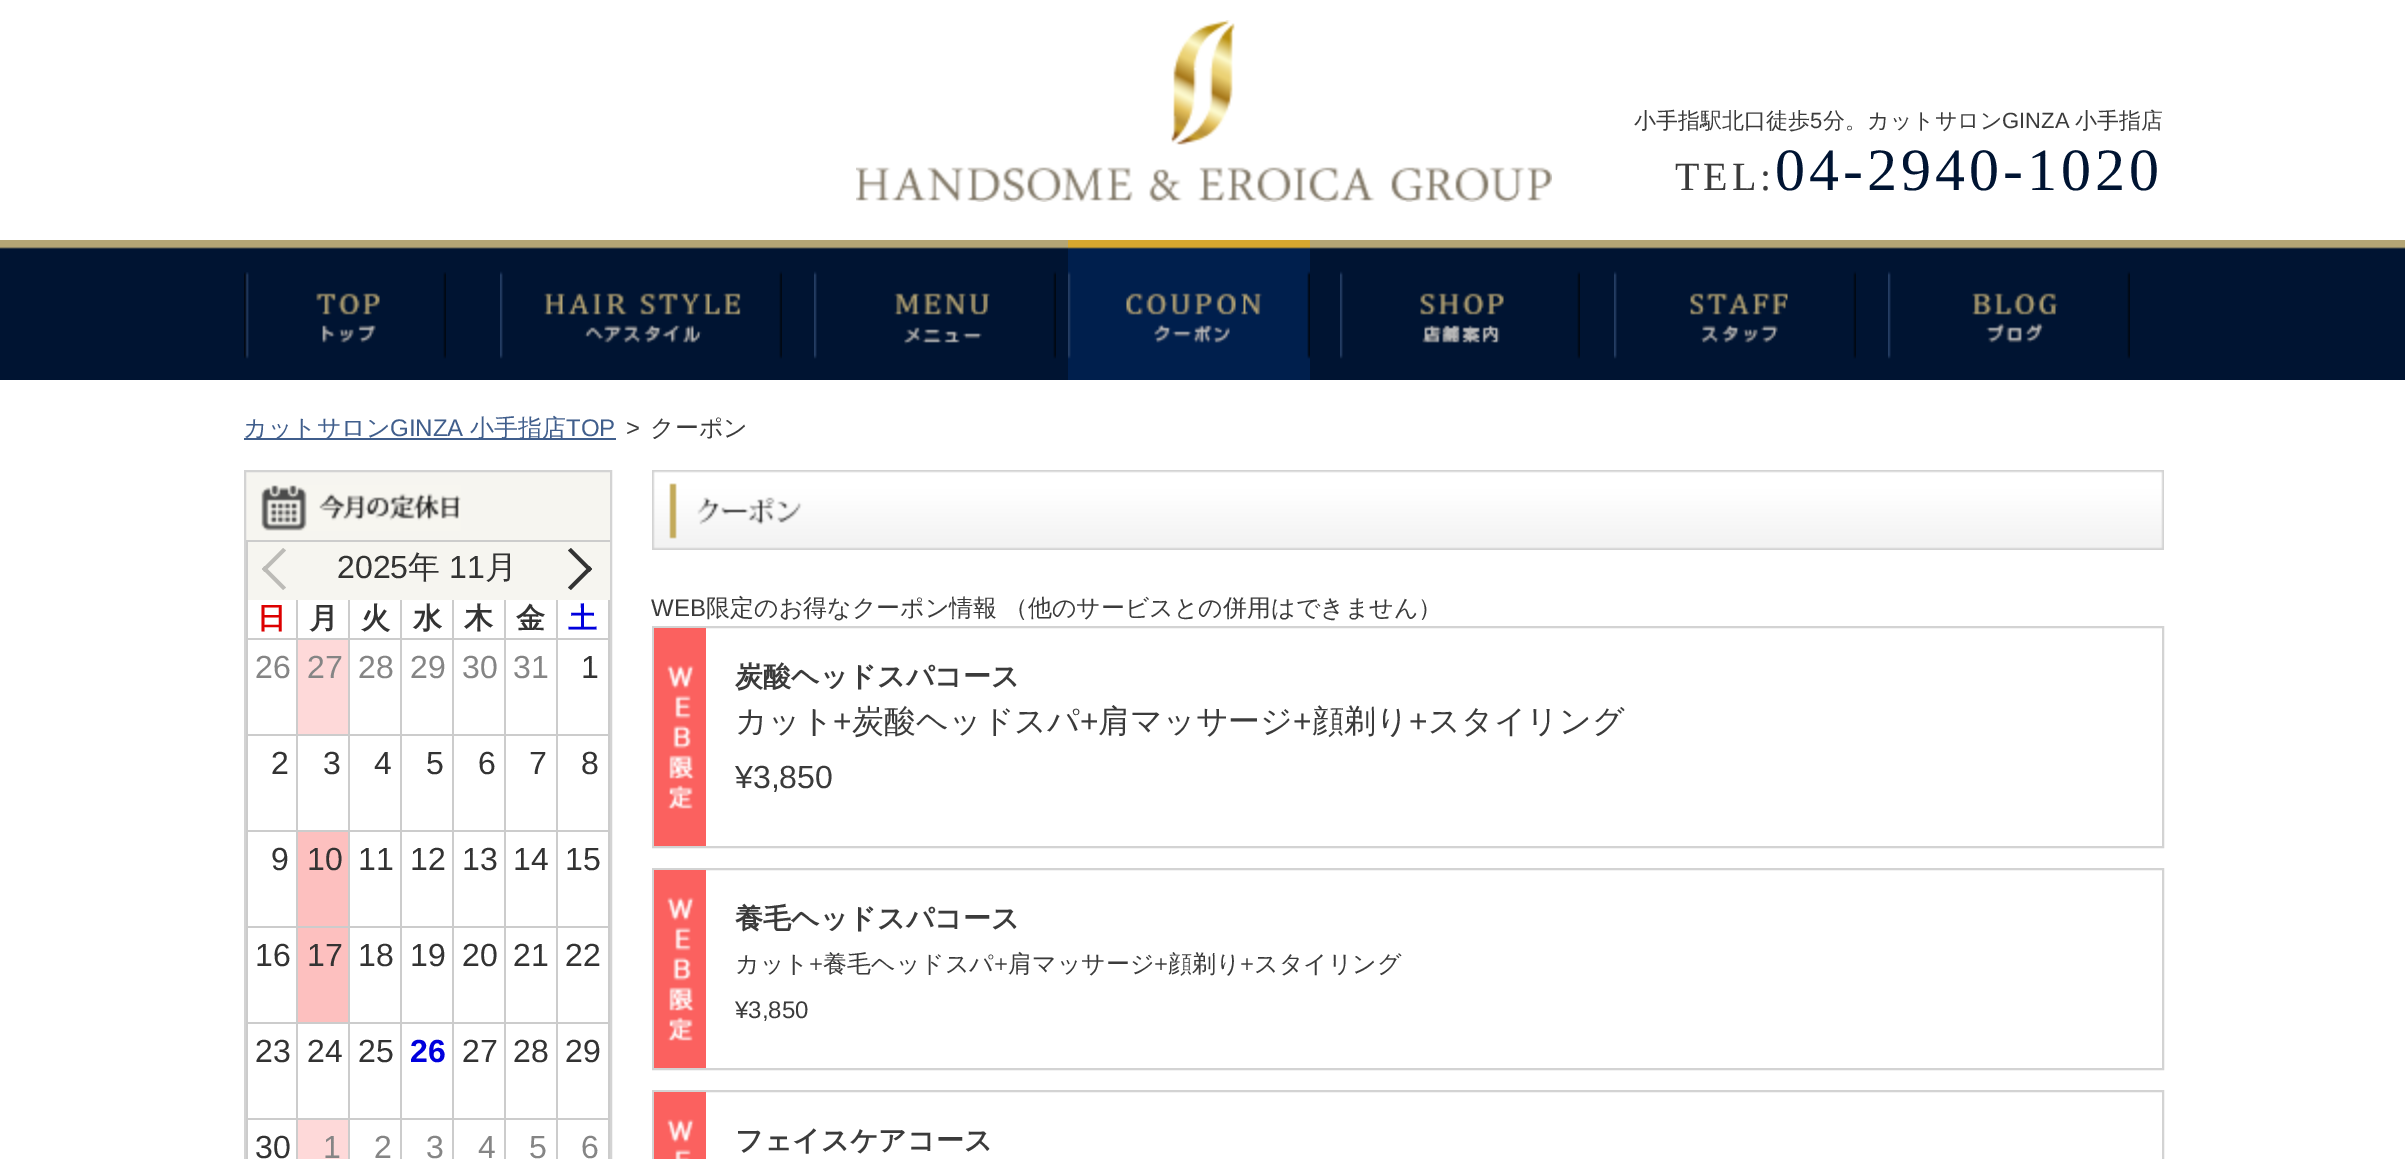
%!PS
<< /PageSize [2405 1159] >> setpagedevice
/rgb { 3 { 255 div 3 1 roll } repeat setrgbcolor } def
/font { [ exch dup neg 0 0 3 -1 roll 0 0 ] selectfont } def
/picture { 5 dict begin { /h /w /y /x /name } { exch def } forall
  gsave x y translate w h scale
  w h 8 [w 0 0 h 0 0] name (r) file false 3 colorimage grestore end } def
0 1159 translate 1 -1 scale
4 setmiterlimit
255 255 255 rgb
0 0 2405 1159 rectfill
(img/1.rgb) 856 20 696 182 picture
(img/2.rgb) 0 240 2405 140 picture
(img/3.rgb) 244 272 202 87 picture
(img/4.rgb) 500 271 282 88 picture
(img/5.rgb) 814 271 242 88 picture
(img/6.rgb) 1068 240 242 140 picture
(img/7.rgb) 1340 271 240 88 picture
(img/8.rgb) 1614 271 242 88 picture
(img/9.rgb) 1888 271 242 88 picture
64 94 140 rgb
244 438 372 2 rectfill
246 245 240 rgb
246 472 364 128 rectfill
211 211 211 rgb
2 setlinewidth
245 471 366 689 rectstroke
(img/10.rgb) 261 485 200 46 picture
204 204 204 rgb
246 540 364 2 rectfill
246 540 2 619 rectfill
188 187 183 rgb
264.5 566 moveto 286 587.5 lineto 283 590 lineto 262 569 lineto closepath fill
283 548 moveto 286 550.5 lineto 264.5 572 lineto 262 569 lineto closepath fill
51 51 51 rgb
571 548 moveto 592 569 lineto 589.5 572 lineto 568 550.5 lineto closepath fill
589.5 566 moveto 592 569 lineto 571 590 lineto 568 587.5 lineto closepath fill
[
  [296 600 2 38 204 204 204]
  [348 600 2 38 204 204 204]
  [400 600 2 38 204 204 204]
  [452 600 2 38 204 204 204]
  [504 600 2 38 204 204 204]
  [556 600 2 38 204 204 204]
  [608 600 2 38 204 204 204]
  [248 638 362 2 204 204 204]
  [296 638 2 96 204 204 204]
  [348 638 2 96 204 204 204]
  [298 640 50 94 254 217 217]
  [400 638 2 96 204 204 204]
  [452 638 2 96 204 204 204]
  [504 638 2 96 204 204 204]
  [556 638 2 96 204 204 204]
  [608 638 2 96 204 204 204]
  [248 734 362 2 204 204 204]
  [296 734 2 96 204 204 204]
  [348 734 2 96 204 204 204]
  [400 734 2 96 204 204 204]
  [452 734 2 96 204 204 204]
  [504 734 2 96 204 204 204]
  [556 734 2 96 204 204 204]
  [608 734 2 96 204 204 204]
  [248 830 362 2 204 204 204]
  [296 830 2 96 204 204 204]
  [348 830 2 96 204 204 204]
  [298 832 50 94 253 192 191]
  [400 830 2 96 204 204 204]
  [452 830 2 96 204 204 204]
  [504 830 2 96 204 204 204]
  [556 830 2 96 204 204 204]
  [608 830 2 96 204 204 204]
  [248 926 362 2 204 204 204]
  [296 926 2 96 204 204 204]
  [348 926 2 96 204 204 204]
  [298 928 50 94 253 192 191]
  [400 926 2 96 204 204 204]
  [452 926 2 96 204 204 204]
  [504 926 2 96 204 204 204]
  [556 926 2 96 204 204 204]
  [608 926 2 96 204 204 204]
  [248 1022 362 2 204 204 204]
  [296 1022 2 96 204 204 204]
  [348 1022 2 96 204 204 204]
  [400 1022 2 96 204 204 204]
  [452 1022 2 96 204 204 204]
  [504 1022 2 96 204 204 204]
  [556 1022 2 96 204 204 204]
  [608 1022 2 96 204 204 204]
  [248 1118 362 2 204 204 204]
  [296 1118 2 41 204 204 204]
  [348 1118 2 41 204 204 204]
  [298 1120 50 39 254 217 217]
  [400 1118 2 41 204 204 204]
  [452 1118 2 41 204 204 204]
  [504 1118 2 41 204 204 204]
  [556 1118 2 41 204 204 204]
  [608 1118 2 41 204 204 204]
] { aload pop rgb rectfill } forall
(img/11.rgb) 652 470 1512 80 picture
211 211 211 rgb
653 627 1510 220 rectstroke
251 97 95 rgb
654 628 52 218 rectfill
(img/12.rgb) 667 665 28 144 picture
211 211 211 rgb
653 869 1510 200 rectstroke
251 97 95 rgb
654 870 52 198 rectfill
(img/12.rgb) 667 897 28 144 picture
211 211 211 rgb
653 1091 1510 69 rectstroke
251 97 95 rgb
654 1092 52 67 rectfill
(img/13.rgb) 667 1119 27 40 picture
/WenQuanYiZenHei-Medium 22 font
59 59 59 rgb
1634 128 moveto (小手指駅北口徒歩) show
/LiberationSans-Regular 22 font
1810 128 moveto (5) show
/WenQuanYiZenHei-Medium 22 font
1823 128 moveto (分。カットサロン) show
/LiberationSans-Regular 22 font
2002 128 moveto (GINZA) show
/WenQuanYiZenHei-Medium 22 font
2075 128 moveto (小手指店) show
/LiberationSerif-Regular 40 font
1675 190 moveto 4 0 (TEL:) ashow
/LiberationSerif-Regular 60 font
0 20 50 rgb
1775 190 moveto 4 0 (04-2940-1020) ashow
/WenQuanYiZenHei-Medium 24 font
64 94 140 rgb
243 436 moveto (カットサロン) show
/LiberationSans-Regular 24 font
390 436 moveto (GINZA) show
/WenQuanYiZenHei-Medium 24 font
470 436 moveto (小手指店) show
/LiberationSans-Regular 24 font
566 436 moveto (TOP) show
59 59 59 rgb
626 436 moveto (>) show
/WenQuanYiZenHei-Medium 24 font
650 436 moveto (クーポン) show
/LiberationSans-Regular 32 font
51 51 51 rgb
337 578 moveto (2025) show
/WenQuanYiZenHei-Medium 32 font
408 578 moveto (年) show
/LiberationSans-Regular 32 font
449 578 moveto (11) show
/WenQuanYiZenHei-Medium 32 font
485 578 moveto (月) show
/WenQuanYiZenHei-Bold 29 font
221 0 0 rgb
257 628 moveto (日) show
51 51 51 rgb
[
  [(月) 309 628]
  [(火) 361 628]
  [(水) 413 628]
  [(木) 464 628]
  [(金) 516 628]
] { aload pop moveto show } forall
0 0 221 rgb
568 628 moveto (土) show
/LiberationSans-Regular 32 font
133 133 133 rgb
[
  [(26) 255 678]
  [(27) 307 678]
  [(28) 358 678]
  [(29) 410 678]
  [(30) 462 678]
  [(31) 513 678]
] { aload pop moveto show } forall
51 51 51 rgb
[
  [(1) 581 678]
  [(2) 271 774]
  [(3) 323 774]
  [(4) 374 774]
  [(5) 426 774]
  [(6) 478 774]
  [(7) 529 774]
  [(8) 581 774]
  [(9) 271 870]
  [(10) 307 870]
  [(11) 358 870]
  [(12) 410 870]
  [(13) 462 870]
  [(14) 513 870]
  [(15) 565 870]
  [(16) 255 966]
  [(17) 307 966]
  [(18) 358 966]
  [(19) 410 966]
  [(20) 462 966]
  [(21) 513 966]
  [(22) 565 966]
  [(23) 255 1062]
  [(24) 307 1062]
  [(25) 358 1062]
] { aload pop moveto show } forall
/LiberationSans-Bold 32 font
0 0 221 rgb
410 1062 moveto (26) show
/LiberationSans-Regular 32 font
51 51 51 rgb
[
  [(27) 462 1062]
  [(28) 513 1062]
  [(29) 565 1062]
  [(30) 255 1158]
] { aload pop moveto show } forall
133 133 133 rgb
[
  [(1) 323 1158]
  [(2) 374 1158]
  [(3) 426 1158]
  [(4) 478 1158]
  [(5) 529 1158]
  [(6) 581 1158]
] { aload pop moveto show } forall
/LiberationSans-Regular 24 font
59 59 59 rgb
651 616 moveto (WEB) show
/WenQuanYiZenHei-Medium 24 font
706 616 moveto -1 0 32 (限定のお得なクーポン情報 （他のサービスとの併用はできません）) widthshow
/WenQuanYiZenHei-Bold 28 font
735 686 moveto (炭酸ヘッドスパコース) show
/WenQuanYiZenHei-Medium 32 font
735 732 moveto (カット) show
/LiberationSans-Regular 32 font
833 732 moveto (+) show
/WenQuanYiZenHei-Medium 32 font
852 732 moveto (炭酸ヘッドスパ) show
/LiberationSans-Regular 32 font
1080 732 moveto (+) show
/WenQuanYiZenHei-Medium 32 font
1098 732 moveto (肩マッサージ) show
/LiberationSans-Regular 32 font
1293 732 moveto (+) show
/WenQuanYiZenHei-Medium 32 font
1312 732 moveto (顔剃り) show
/LiberationSans-Regular 32 font
1409 732 moveto (+) show
/WenQuanYiZenHei-Medium 32 font
1428 732 moveto (スタイリング) show
/LiberationSans-Regular 32 font
735 788 moveto (¥3,850) show
/WenQuanYiZenHei-Bold 28 font
735 928 moveto (養毛ヘッドスパコース) show
/WenQuanYiZenHei-Medium 24 font
735 972 moveto (カット) show
/LiberationSans-Regular 24 font
809 972 moveto (+) show
/WenQuanYiZenHei-Medium 24 font
823 972 moveto (養毛ヘッドスパ) show
/LiberationSans-Regular 24 font
994 972 moveto (+) show
/WenQuanYiZenHei-Medium 24 font
1008 972 moveto (肩マッサージ) show
/LiberationSans-Regular 24 font
1154 972 moveto (+) show
/WenQuanYiZenHei-Medium 24 font
1168 972 moveto (顔剃り) show
/LiberationSans-Regular 24 font
1240 972 moveto (+) show
/WenQuanYiZenHei-Medium 24 font
1254 972 moveto (スタイリング) show
/LiberationSans-Regular 24 font
735 1018 moveto (¥3,850) show
/WenQuanYiZenHei-Bold 28 font
735 1150 moveto (フェイスケアコース) show
showpage
